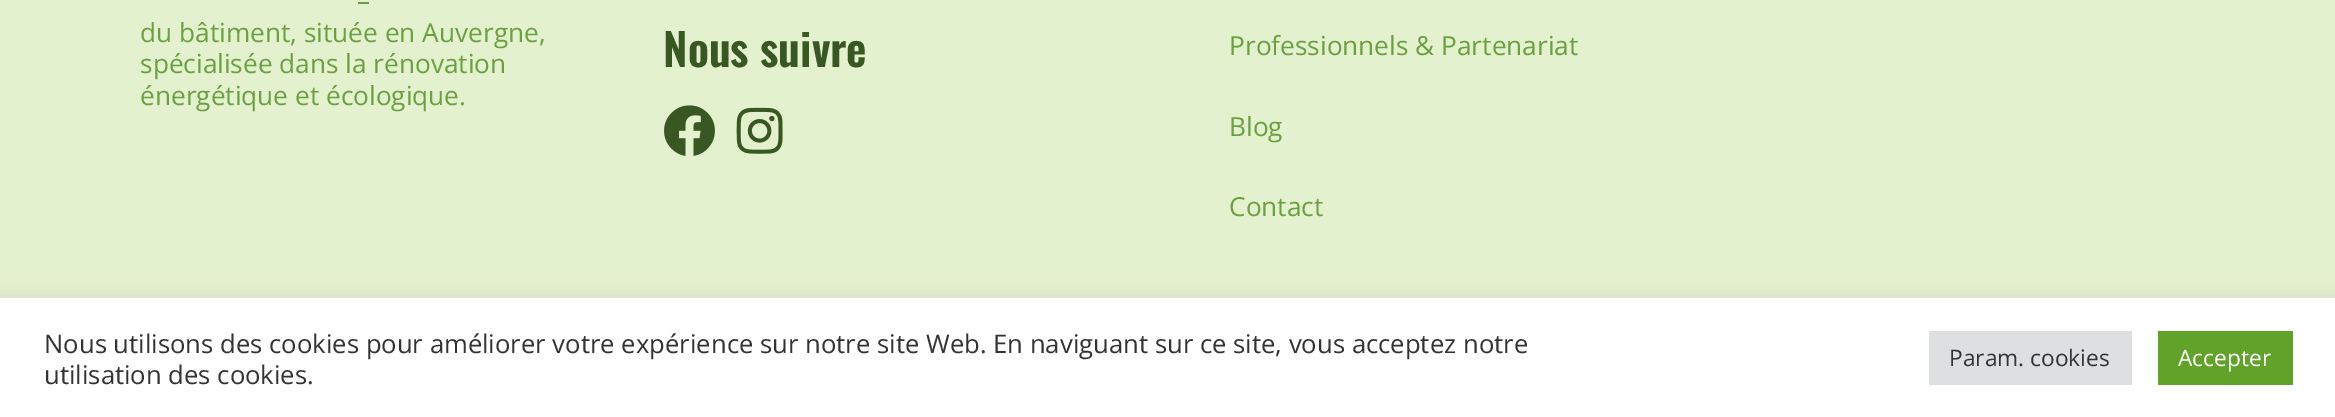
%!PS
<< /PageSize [2335 417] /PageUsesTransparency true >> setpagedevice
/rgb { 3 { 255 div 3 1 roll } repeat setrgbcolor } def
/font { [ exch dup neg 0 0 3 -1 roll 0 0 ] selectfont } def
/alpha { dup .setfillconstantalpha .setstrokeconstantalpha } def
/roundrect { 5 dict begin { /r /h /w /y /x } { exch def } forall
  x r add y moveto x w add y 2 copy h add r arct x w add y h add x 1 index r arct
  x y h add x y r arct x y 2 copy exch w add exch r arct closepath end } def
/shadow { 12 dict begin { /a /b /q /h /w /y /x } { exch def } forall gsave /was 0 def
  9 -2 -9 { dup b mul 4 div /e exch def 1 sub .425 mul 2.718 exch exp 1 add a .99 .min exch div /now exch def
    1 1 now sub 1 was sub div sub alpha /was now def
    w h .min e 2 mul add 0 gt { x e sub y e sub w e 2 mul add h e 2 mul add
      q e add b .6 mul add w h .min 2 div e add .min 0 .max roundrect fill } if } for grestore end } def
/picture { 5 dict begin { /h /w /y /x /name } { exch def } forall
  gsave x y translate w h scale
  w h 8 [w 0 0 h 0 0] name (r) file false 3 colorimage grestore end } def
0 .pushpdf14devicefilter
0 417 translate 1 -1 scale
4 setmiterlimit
228 241 206 rgb
0 0 2335 417 rectfill
(img/1.rgb) 664 105 51 51 picture
(img/2.rgb) 736 107 47 47 picture
172 171 171 rgb
0 296 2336 121 0 9 0.3 shadow
[
  [0 298 2335 119 255 255 255]
  [1929 331 203 54 222 223 224]
  [2158 331 135 54 97 162 41]
] { aload pop rgb rectfill } forall
/OpenSans-Regular 26.25 font
106 160 64 rgb
[
  [(–) 357 10]
  [(du bâtiment, située en Auvergne,) 140 42]
  [(spécialisée dans la rénovation) 140 73]
  [(énergétique et écologique.) 140 105]
] { aload pop moveto show } forall
/Oswald-SemiBold 44.5 font
56 87 35 rgb
663 67 moveto (Nous suivre) show
/OpenSans-Regular 26.25 font
106 160 64 rgb
[
  [(Professionnels & Partenariat) 1229 55]
  [(Blog) 1229 136]
  [(Contact) 1229 216]
] { aload pop moveto show } forall
/OpenSans-Regular 25.67 font
51 51 51 rgb
44 353 moveto (Nous utilisons des cookies pour améliorer votre expérience sur notre site Web. En naviguant sur ce site, vous acceptez notre) show
44 384 moveto (utilisation des cookies.) show
/OpenSans-Regular 22.75 font
1949 366 moveto (Param. cookies) show
255 255 255 rgb
2178 366 moveto (Accepter) show
.poppdf14devicefilter showpage
